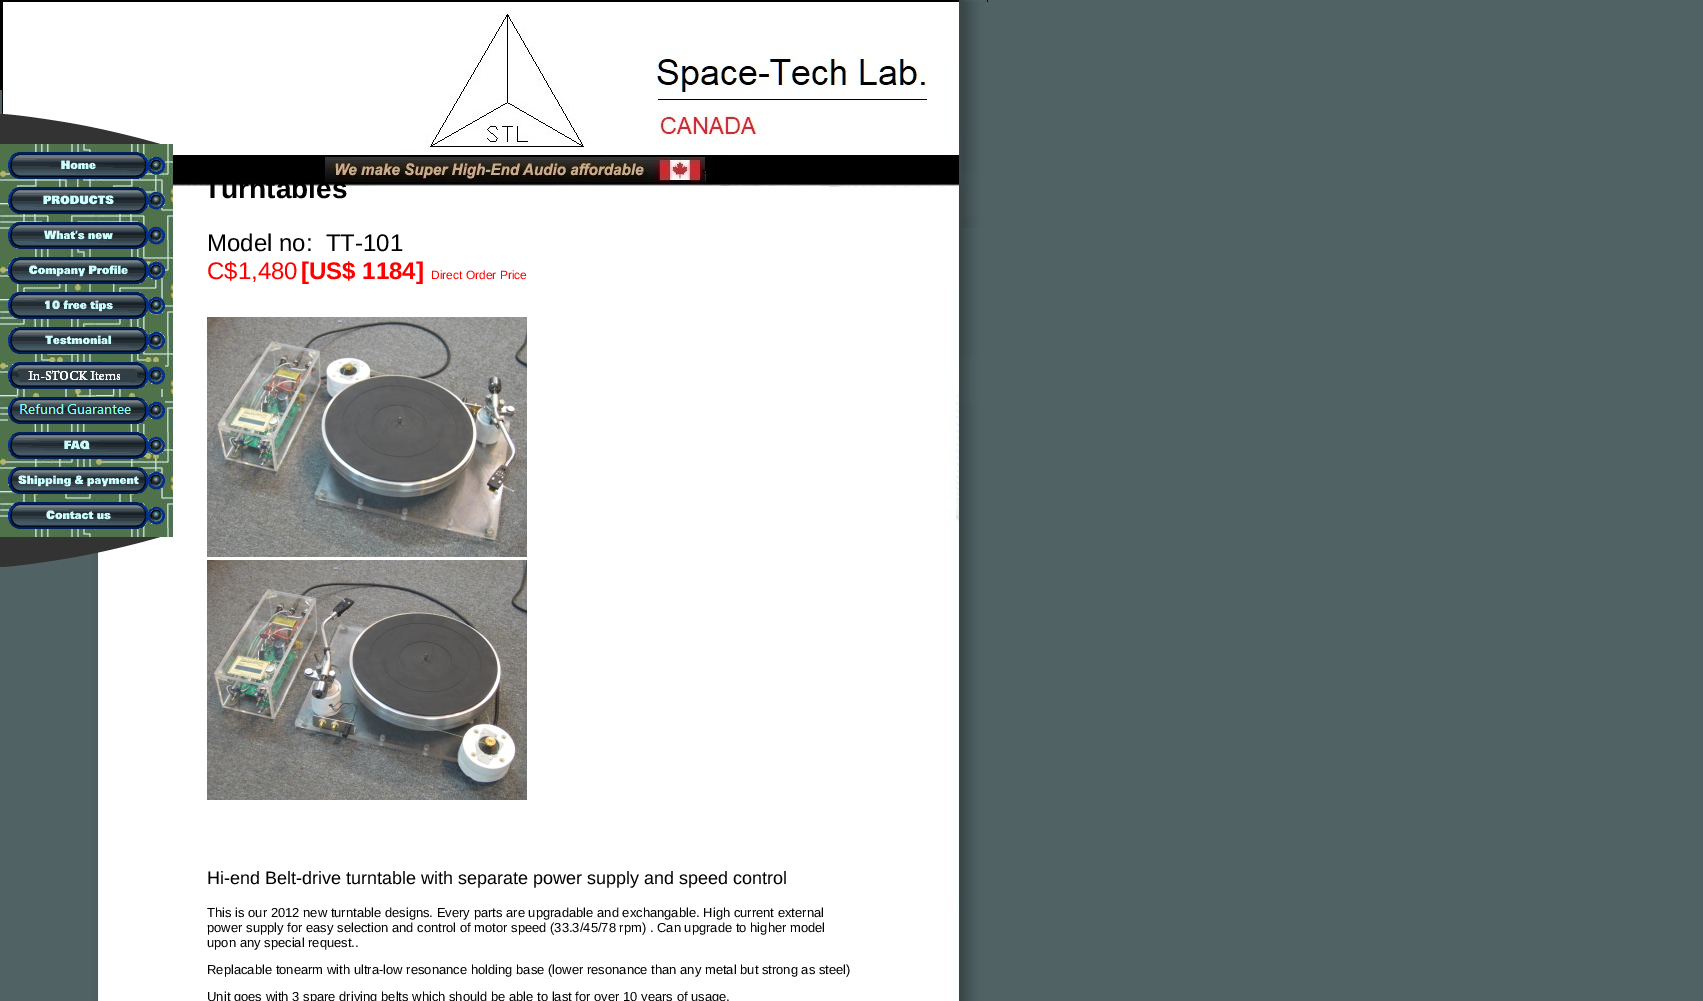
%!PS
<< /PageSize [1703 1001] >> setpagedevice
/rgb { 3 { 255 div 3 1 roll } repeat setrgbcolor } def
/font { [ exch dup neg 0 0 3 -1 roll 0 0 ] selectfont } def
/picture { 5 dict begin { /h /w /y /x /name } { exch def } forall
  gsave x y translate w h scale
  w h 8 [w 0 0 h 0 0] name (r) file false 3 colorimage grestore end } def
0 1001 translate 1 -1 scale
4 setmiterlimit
80 98 100 rgb
0 0 1703 1001 rectfill
(img/1.rgb) 0 0 988 1001 picture
(img/2.rgb) 0 114 160 30 picture
(img/3.rgb) 0 144 173 393 picture
(img/4.rgb) 8 152 157 27 picture
(img/5.rgb) 8 187 157 27 picture
(img/6.rgb) 8 222 157 27 picture
(img/7.rgb) 8 257 157 27 picture
(img/8.rgb) 8 292 157 27 picture
(img/9.rgb) 8 327 157 27 picture
(img/10.rgb) 8 362 157 27 picture
(img/11.rgb) 8 397 157 27 picture
(img/12.rgb) 8 432 157 27 picture
(img/13.rgb) 8 467 157 27 picture
(img/14.rgb) 8 502 157 27 picture
(img/15.rgb) 0 537 160 30 picture
(img/16.rgb) 207 317 320 240 picture
(img/17.rgb) 207 560 320 240 picture
/LiberationSans-Bold 28 font
0 0 0 rgb
204 198 moveto (Turntables) show
/LiberationSans-Regular 24 font
207 251 moveto (Model no:  TT-101) show
255 0 0 rgb
207 279 moveto (C$1,480) show
/LiberationSans-Bold 24 font
301 279 moveto ([US$ 1184]) show
/LiberationSans-Regular 12 font
431 279 moveto (Direct Order Price) show
/LiberationSans-Regular 18 font
0 0 0 rgb
207 884 moveto (Hi-end Belt-drive turntable with separate power supply and speed control) show
/LiberationSans-Regular 13 font
[
  [(This is our 2012 new turntable designs. Every parts are upgradable and exchangable. High current external) 207 917]
  [(power supply for easy selection and control of motor speed \(33.3/45/78 rpm\) . Can upgrade to higher model) 207 932]
  [(upon any special request..) 207 947]
  [(Replacable tonearm with ultra-low resonance holding base \(lower resonance than any metal but strong as steel\)) 207 974]
  [(Unit goes with 3 spare driving belts which should be able to last for over 10 years of usage.) 207 1001]
] { aload pop moveto show } forall
showpage
